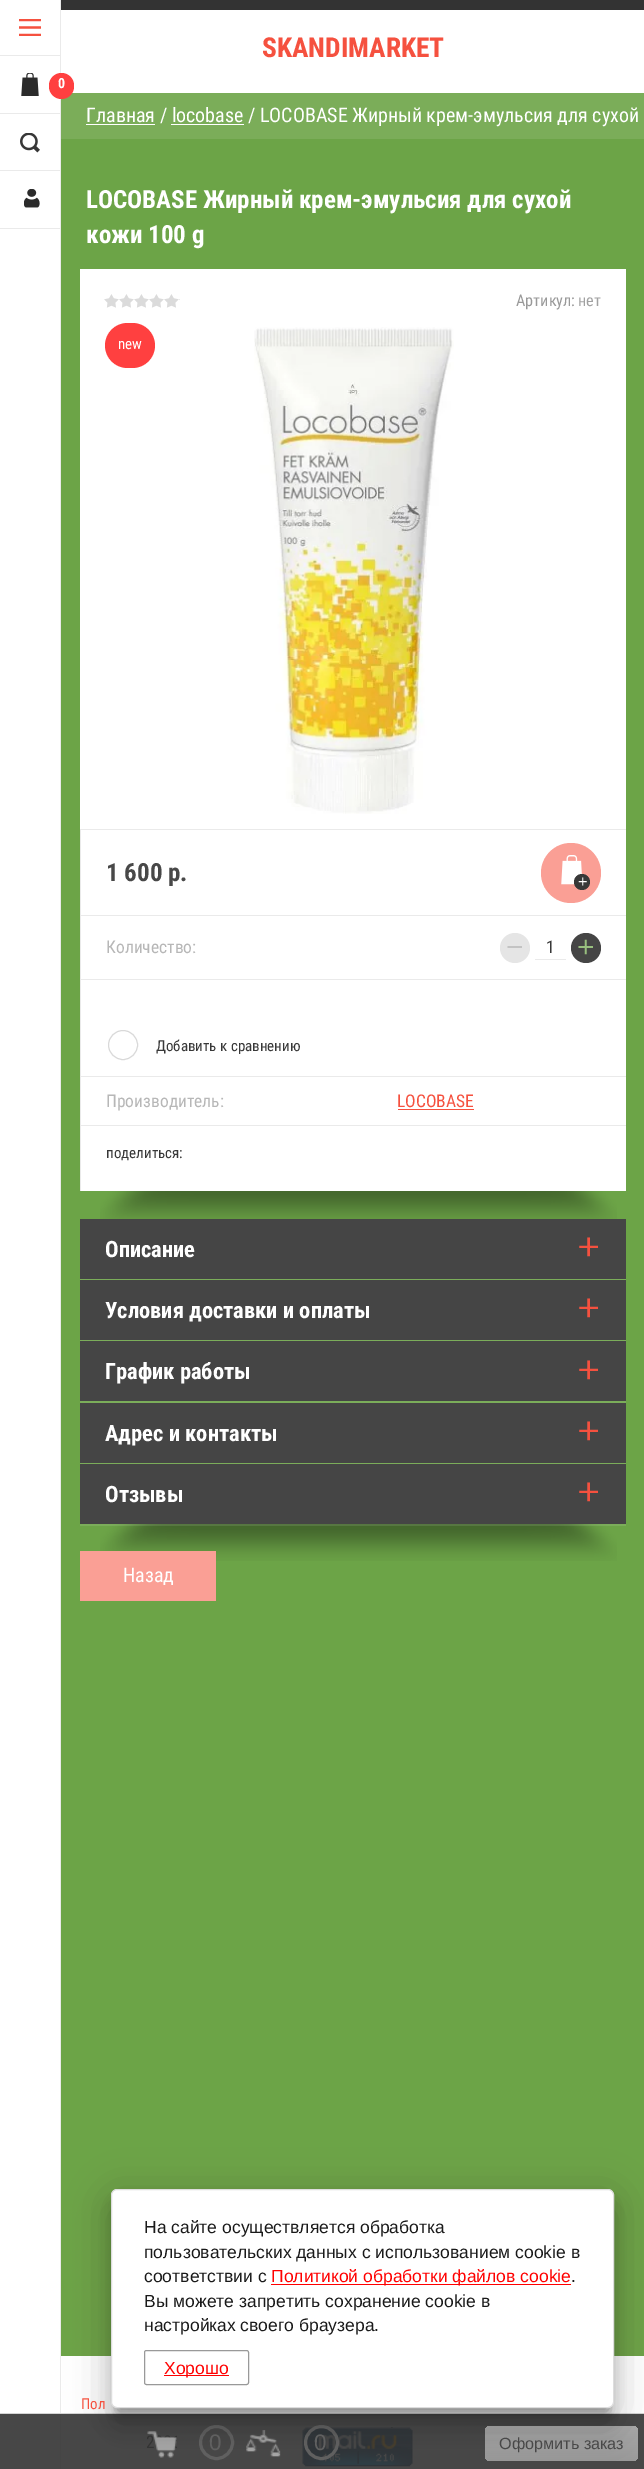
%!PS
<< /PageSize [644 2469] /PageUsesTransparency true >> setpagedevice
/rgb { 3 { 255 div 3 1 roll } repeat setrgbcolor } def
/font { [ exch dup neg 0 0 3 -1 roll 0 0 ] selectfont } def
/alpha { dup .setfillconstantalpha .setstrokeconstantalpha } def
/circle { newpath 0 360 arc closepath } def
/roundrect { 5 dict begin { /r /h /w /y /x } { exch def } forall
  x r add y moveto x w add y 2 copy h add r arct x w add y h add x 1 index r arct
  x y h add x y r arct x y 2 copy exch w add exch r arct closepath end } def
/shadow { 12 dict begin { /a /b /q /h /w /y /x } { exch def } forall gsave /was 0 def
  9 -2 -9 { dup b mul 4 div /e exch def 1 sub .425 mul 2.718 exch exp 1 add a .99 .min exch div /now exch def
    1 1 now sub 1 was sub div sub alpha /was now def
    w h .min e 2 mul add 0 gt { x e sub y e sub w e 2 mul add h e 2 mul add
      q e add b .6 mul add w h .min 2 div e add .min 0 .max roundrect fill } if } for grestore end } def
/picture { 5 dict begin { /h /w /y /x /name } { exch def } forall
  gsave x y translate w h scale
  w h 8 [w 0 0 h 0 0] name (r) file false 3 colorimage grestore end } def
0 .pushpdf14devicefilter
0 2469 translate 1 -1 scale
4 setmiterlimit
108 164 71 rgb
0 0 644 2469 rectfill
[
  [0 0 60 2469 255 255 255]
  [60 0 1 2469 234 234 234]
  [0 55 61 1 234 234 234]
] { aload pop rgb rectfill } forall
(img/1.rgb) 19 19 22 17 picture
0 113 60 1 rectfill
(img/2.rgb) 21 73 18 23 picture
255 255 255 rgb
61 10 583 83 rectfill
123 173 89 rgb
61 93 583 46 rectfill
255 64 64 rgb
49 73 25 26 12.5 roundrect fill
234 234 234 rgb
0 170 60 1 rectfill
(img/3.rgb) 20 133 20 20 picture
0 228 60 1 rectfill
(img/4.rgb) 24 189 16 19 picture
[
  [61 0 583 10 51 51 51]
  [86 124 69 1 255 255 255]
  [171 124 73 1 255 255 255]
  [80 269 546 922 255 255 255]
] { aload pop rgb rectfill } forall
(img/5.rgb) 104 294 76 14 picture
255 64 64 rgb
105 323 50 45 22.5 roundrect fill
(img/6.rgb) 254 327 200 487 picture
234 234 234 rgb
80 829 1 362 rectfill
81 829 545 1 rectfill
250 159 149 rgb
571 873 30 circle fill
(img/7.rgb) 561 855 21 30 picture
56 56 56 rgb
582 882 8 circle fill
234 234 234 rgb
81 915 545 1 rectfill
229 229 229 rgb
515 948 15 circle fill
234 234 234 rgb
535 959 31 1 rectfill
69 69 69 rgb
586 948 15 circle fill
234 234 234 rgb
81 979 545 1 rectfill
81 1076 545 1 rectfill
217 217 217 rgb
123 1045 14.5 circle stroke
245 81 63 rgb
398 1109 76 1 rectfill
234 234 234 rgb
81 1125 545 1 rectfill
(img/8.rgb) 100 1191 517 28 picture
(img/9.rgb) 100 1524 517 37 picture
0.1 alpha
[
  [80 1279 546 247 255 255 255]
] { aload pop rgb rectfill } forall
1 alpha
[
  [80 1219 546 60 69 69 69]
  [80 1280 546 60 69 69 69]
  [80 1341 546 60 69 69 69]
  [80 1403 546 60 69 69 69]
  [80 1464 546 60 69 69 69]
  [80 1551 136 50 250 159 149]
  [61 2356 583 113 255 255 255]
] { aload pop rgb rectfill } forall
(img/12.rgb) 302 2427 111 40 picture
0.9 alpha
51 51 51 rgb
0 2414 644 55 rectfill
1 alpha
212 212 212 rgb
0 2413 644 1 rectfill
(img/10.rgb) 147 2431 30 27 picture
96 96 96 rgb
3 setlinewidth
216.5 2442.5 16 circle stroke
(img/11.rgb) 246 2430 35 27 picture
321.5 2442.5 16 circle stroke
gsave 485 2426 153 35 5 roundrect clip newpath
<< /ShadingType 2 /ColorSpace /DeviceRGB /Coords [561 2426 561 2461] /Extend [true true] /Function << /FunctionType 2 /Domain [0 1] /C0 [0.667 0.667 0.667] /C1 [0.6 0.6 0.6] /N 1 >> >> shfill grestore
0 0 0 rgb
118 2205 490 206 0 6 0.4 shadow
105 2190 515 231 13 19 0.12 shadow
109 2206 507 224 9 15 0.14 shadow
255 255 255 rgb
111.5 2189.5 502 218 5.5 roundrect gsave fill grestore
221 221 221 rgb
1 setlinewidth
stroke
255 0 0 rgb
271 2284 300 1 rectfill
153 153 153 rgb
144.5 2350.5 104 34 2 roundrect stroke
255 0 0 rgb
164 2375 65 1 rectfill
/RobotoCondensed-Bold 14 font
255 255 255 rgb
58 88 moveto (0) show
/RobotoCondensed-Bold 27.5 font
245 81 63 rgb
262 57 moveto (SKANDIMARKET) show
/RobotoCondensed-Regular 20 font
255 255 255 rgb
86 122 moveto (Главная / locobase / LOCOBASE Жирный крем-эмульсия для сухой) show
/RobotoCondensed-Bold 25 font
86 208 moveto (LOCOBASE Жирный крем-эмульсия для сухой) show
86 243 moveto (кожи 100 g) show
/RobotoCondensed-Regular 16.25 font
153 153 153 rgb
516 306 moveto (Артикул:) show
161 161 161 rgb
578 306 moveto (нет) show
/RobotoCondensed-Regular 15 font
255 255 255 rgb
118 349 moveto (new) show
/RobotoCondensed-Bold 25 font
72 72 72 rgb
106 881 moveto (1 600 р.) show
/LiberationSans-Regular 16.25 font
255 255 255 rgb
578 887 moveto (+) show
/RobotoCondensed-Regular 17.5 font
183 183 183 rgb
106 953 moveto (Количество:) show
/LiberationSans-Regular 30 font
195 195 195 rgb
506 957 moveto (−) show
/RobotoCondensed-Regular 17.5 font
56 56 56 rgb
546 953 moveto (1) show
/LiberationSans-Regular 30 font
152 191 126 rgb
577 957 moveto (+) show
/RobotoCondensed-Regular 15 font
56 56 56 rgb
156 1051 moveto (Добавить к сравнению) show
/RobotoCondensed-Regular 17.5 font
183 183 183 rgb
106 1107 moveto (Производитель:) show
245 81 63 rgb
397 1107 moveto (LOCOBASE) show
/RobotoCondensed-Regular 15 font
56 56 56 rgb
106 1158 moveto (поделиться:) show
/RobotoCondensed-Bold 22.5 font
255 255 255 rgb
105 1257 moveto (Описание) show
/Caladea-Regular 46 font
245 81 63 rgb
576 1260 moveto (+) show
/RobotoCondensed-Bold 22.5 font
255 255 255 rgb
105 1318 moveto (Условия доставки и оплаты) show
/Caladea-Regular 46 font
245 81 63 rgb
576 1321 moveto (+) show
/RobotoCondensed-Bold 22.5 font
255 255 255 rgb
105 1379 moveto (График работы) show
/Caladea-Regular 46 font
245 81 63 rgb
576 1383 moveto (+) show
/RobotoCondensed-Bold 22.5 font
255 255 255 rgb
105 1441 moveto (Адрес и контакты) show
/Caladea-Regular 46 font
245 81 63 rgb
576 1444 moveto (+) show
/RobotoCondensed-Bold 22.5 font
255 255 255 rgb
105 1502 moveto (Отзывы) show
/Caladea-Regular 46 font
245 81 63 rgb
576 1505 moveto (+) show
/RobotoCondensed-Regular 20 font
255 255 255 rgb
123 1582 moveto (Назад) show
/LiberationSans-Regular 22.5 font
96 96 96 rgb
209 2450 moveto (0) show
314 2450 moveto (0) show
/LiberationSans-Regular 16.25 font
72 72 72 rgb
499 2449 moveto (Оформить заказ) show
/LiberationSans-Regular 17.5 font
26 26 26 rgb
[
  [(На сайте осуществляется обработка) 144 2233]
  [(пользовательских данных с использованием cookie в) 144 2258]
  [(соответствии с) 144 2282]
] { aload pop moveto show } forall
255 0 0 rgb
271 2282 moveto (Политикой обработки файлов cookie) show
26 26 26 rgb
[
  [(.) 571 2282]
  [(Вы можете запретить сохранение cookie в) 144 2307]
  [(настройках своего браузера.) 144 2331]
] { aload pop moveto show } forall
255 0 0 rgb
164 2374 moveto (Хорошо) show
/RobotoCondensed-Regular 15 font
245 81 63 rgb
81 2409 moveto (Пол) show
.poppdf14devicefilter showpage
